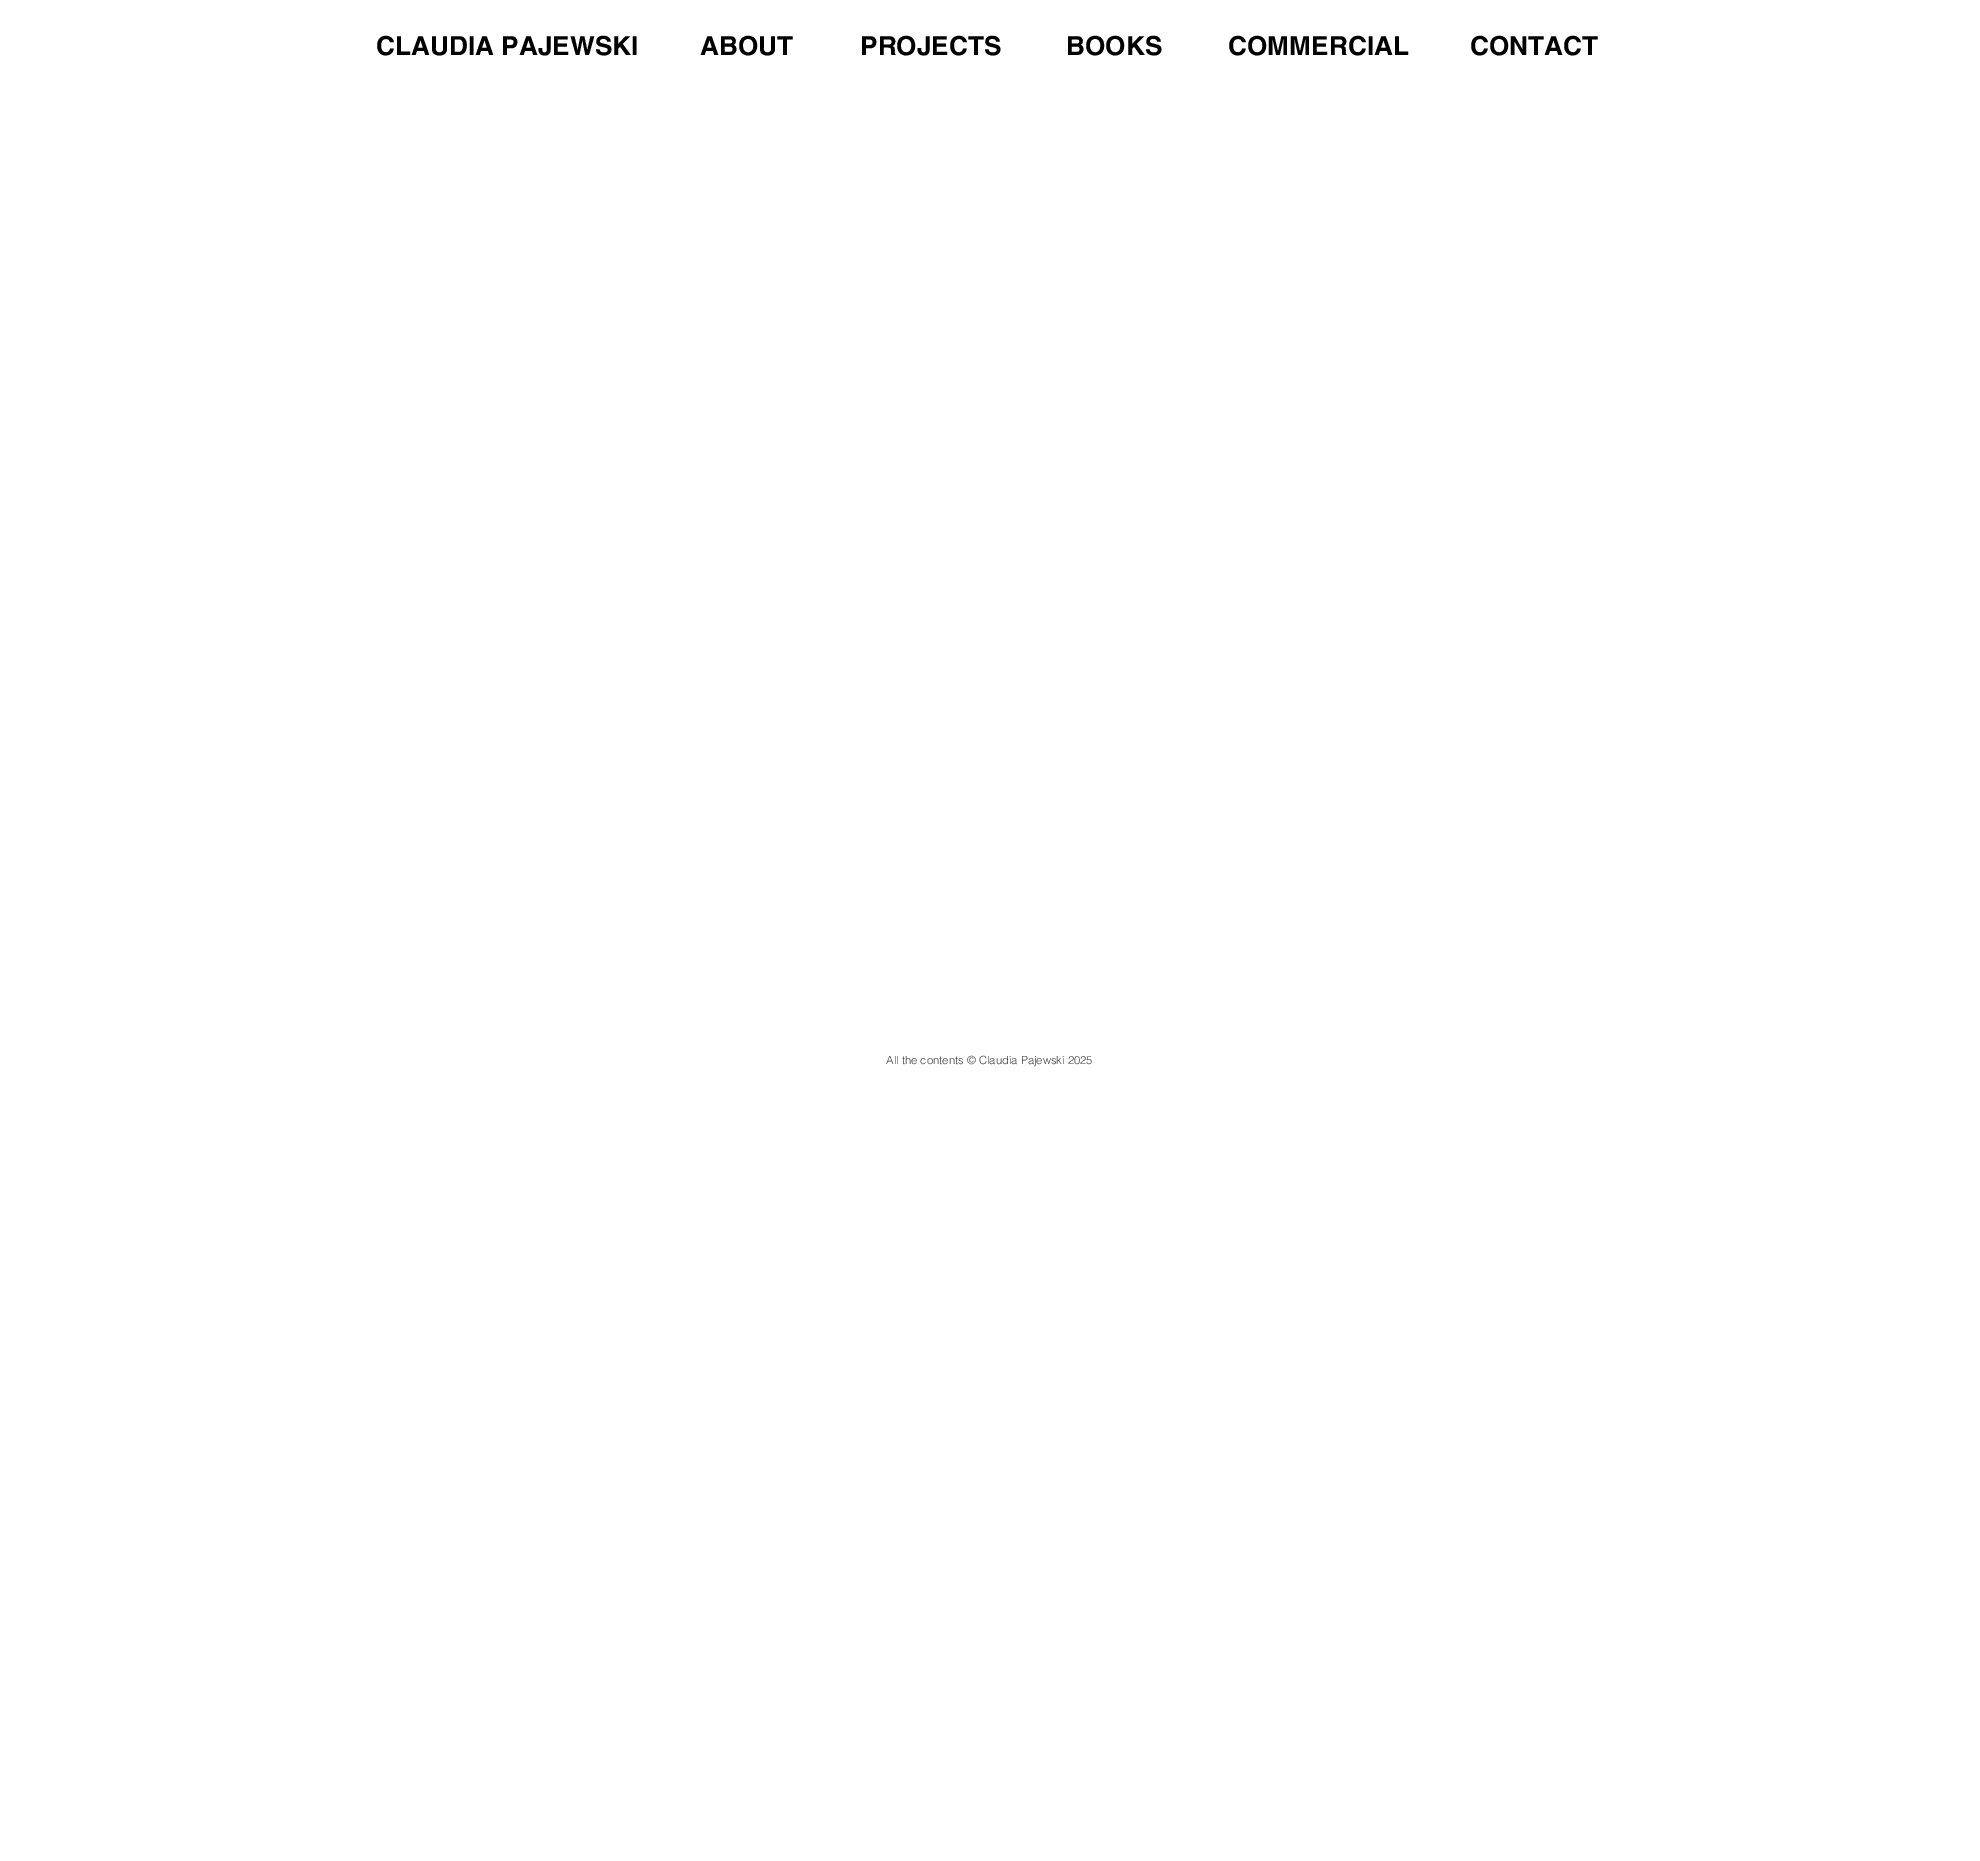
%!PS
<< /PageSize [1980 1861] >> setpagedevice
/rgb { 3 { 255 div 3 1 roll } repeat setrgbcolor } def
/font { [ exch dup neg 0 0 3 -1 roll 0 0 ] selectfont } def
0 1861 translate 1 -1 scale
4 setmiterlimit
255 255 255 rgb
0 0 1980 1861 rectfill
/helvetica-Bold 26.25 font
0 0 0 rgb
[
  [(CLAUDIA PAJEWSKI) 376 55]
  [(ABOUT) 700 55]
  [(PROJECTS) 860 55]
  [(BOOKS) 1066 55]
  [(COMMERCIAL) 1228 55]
  [(CONTACT) 1470 55]
] { aload pop moveto show } forall
/helvetica-Light 11.25 font
66 66 66 rgb
886 1064 moveto (All the contents © Claudia Pajewski 2025) show
showpage
